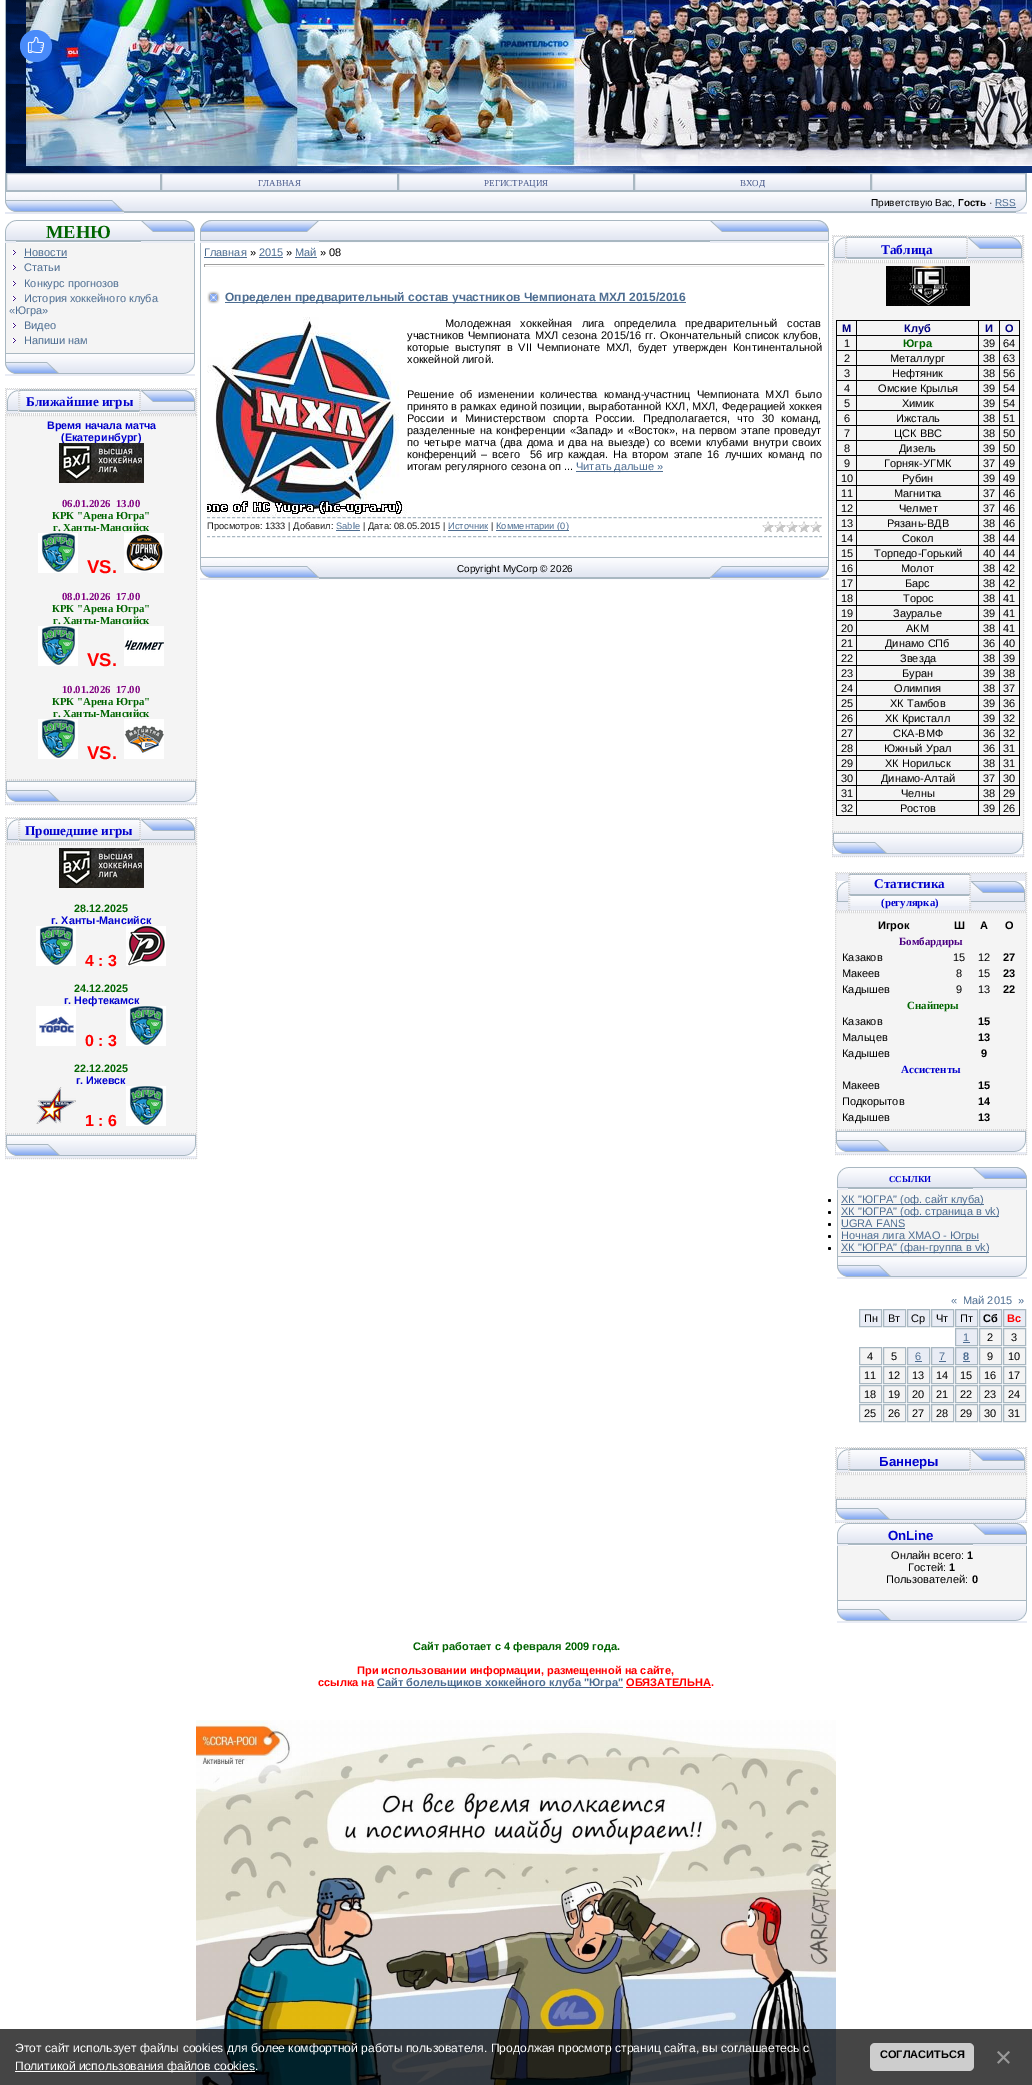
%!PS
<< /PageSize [1032 2085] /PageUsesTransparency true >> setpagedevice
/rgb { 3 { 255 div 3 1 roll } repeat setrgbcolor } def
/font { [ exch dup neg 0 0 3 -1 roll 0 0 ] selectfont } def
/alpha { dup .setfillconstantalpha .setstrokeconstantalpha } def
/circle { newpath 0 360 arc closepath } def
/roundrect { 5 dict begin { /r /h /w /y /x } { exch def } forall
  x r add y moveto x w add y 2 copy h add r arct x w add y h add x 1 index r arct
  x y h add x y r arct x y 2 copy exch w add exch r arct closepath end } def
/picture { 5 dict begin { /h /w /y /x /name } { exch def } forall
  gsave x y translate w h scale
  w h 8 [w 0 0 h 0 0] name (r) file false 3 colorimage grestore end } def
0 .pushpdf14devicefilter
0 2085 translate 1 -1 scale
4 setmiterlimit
255 255 255 rgb
0 0 1032 2085 rectfill
169 184 194 rgb
5 0 1 191 rectfill
(img/1.rgb) 6 0 1026 173 picture
(img/2.rgb) 26 0 1006 166 picture
73 139 250 rgb
36 46 16 circle fill
(img/3.rgb) 27 36 18 17 picture
169 184 194 rgb
1026 173 1 18 rectfill
(img/4.rgb) 7 174 153 16 picture
6.5 173.5 154 17 rectstroke
(img/5.rgb) 162 174 235 16 picture
161.5 173.5 236 17 rectstroke
(img/6.rgb) 399 174 234 16 picture
398.5 173.5 235 17 rectstroke
(img/5.rgb) 635 174 235 16 picture
634.5 173.5 236 17 rectstroke
(img/4.rgb) 872 174 153 16 picture
871.5 173.5 154 17 rectstroke
228 232 243 rgb
5 212 119 2 rectfill
(img/7.rgb) 5 191 119 21 picture
(img/8.rgb) 124 191 892 23 picture
77 109 145 rgb
995 207 21 1 rectfill
228 232 243 rgb
1016 212 11 2 rectfill
(img/9.rgb) 1016 191 11 21 picture
233 236 245 rgb
5 241 190 2 rectfill
(img/10.rgb) 5 220 11 21 picture
(img/11.rgb) 16 220 125 23 picture
(img/12.rgb) 141 220 54 21 picture
[
  [6 243 188 110 244 244 244]
  [194 243 1 110 169 184 194]
  [5 243 1 110 169 184 194]
] { aload pop rgb rectfill } forall
(img/13.rgb) 12 250 4 5 picture
77 109 145 rgb
24 257 43 1 rectfill
(img/13.rgb) 12 265 4 5 picture
(img/13.rgb) 12 281 4 5 picture
(img/13.rgb) 12 296 4 5 picture
(img/13.rgb) 12 323 4 5 picture
(img/13.rgb) 12 338 4 5 picture
233 236 245 rgb
5 374 190 2 rectfill
(img/14.rgb) 5 353 190 21 picture
215 215 215 rgb
[1 1] 0 setdash
5 388.5 moveto 197 388.5 lineto stroke
196.5 388 moveto 196.5 415 lineto stroke
5 414.5 moveto 197 414.5 lineto stroke
5.5 388 moveto 5.5 415 lineto stroke
233 236 245 rgb
6 389 190 25 rectfill
215 215 215 rgb
6 389.5 moveto 19 389.5 lineto 18.5 389 moveto 18.5 414 lineto 6 413.5 moveto 19 413.5 lineto 6.5 389 moveto 6.5 414 lineto stroke
(img/10.rgb) 7 390 11 21 picture
(img/15.rgb) 19 389 121 25 picture
19 389.5 moveto 140 389.5 lineto stroke
139.5 389 moveto 139.5 414 lineto stroke
19 413.5 moveto 140 413.5 lineto stroke
19.5 389 moveto 19.5 414 lineto stroke
140 389.5 moveto 196 389.5 lineto 195.5 389 moveto 195.5 414 lineto 140 413.5 moveto 196 413.5 lineto 140.5 389 moveto 140.5 414 lineto stroke
(img/12.rgb) 141 390 54 21 picture
244 244 244 rgb
5 415 192 365 rectfill
215 215 215 rgb
5 415.5 moveto 197 415.5 lineto stroke
196.5 415 moveto 196.5 780 lineto stroke
5 779.5 moveto 197 779.5 lineto stroke
5.5 415 moveto 5.5 780 lineto stroke
(img/17.rgb) 38 533 40 40 picture
(img/18.rgb) 124 533 40 40 picture
(img/17.rgb) 38 626 40 40 picture
(img/19.rgb) 124 626 40 40 picture
(img/17.rgb) 38 719 40 40 picture
(img/20.rgb) 124 719 40 40 picture
233 236 245 rgb
5 780 192 25 rectfill
215 215 215 rgb
5 780.5 moveto 197 780.5 lineto stroke
196.5 780 moveto 196.5 805 lineto stroke
5 804.5 moveto 197 804.5 lineto stroke
5.5 780 moveto 5.5 805 lineto stroke
(img/14.rgb) 6 781 190 21 picture
5 817.5 moveto 197 817.5 lineto stroke
196.5 817 moveto 196.5 844 lineto stroke
5 843.5 moveto 197 843.5 lineto stroke
5.5 817 moveto 5.5 844 lineto stroke
233 236 245 rgb
6 818 190 25 rectfill
215 215 215 rgb
6 818.5 moveto 19 818.5 lineto 18.5 818 moveto 18.5 843 lineto 6 842.5 moveto 19 842.5 lineto 6.5 818 moveto 6.5 843 lineto stroke
(img/10.rgb) 7 819 11 21 picture
(img/15.rgb) 19 818 121 25 picture
19 818.5 moveto 140 818.5 lineto stroke
139.5 818 moveto 139.5 843 lineto stroke
19 842.5 moveto 140 842.5 lineto stroke
19.5 818 moveto 19.5 843 lineto stroke
140 818.5 moveto 196 818.5 lineto 195.5 818 moveto 195.5 843 lineto 140 842.5 moveto 196 842.5 lineto 140.5 818 moveto 140.5 843 lineto stroke
(img/12.rgb) 141 819 54 21 picture
244 244 244 rgb
5 844 192 290 rectfill
215 215 215 rgb
5 844.5 moveto 197 844.5 lineto stroke
196.5 844 moveto 196.5 1134 lineto stroke
5 1133.5 moveto 197 1133.5 lineto stroke
5.5 844 moveto 5.5 1134 lineto stroke
(img/16.rgb) 59 848 85 40 picture
(img/17.rgb) 36 926 40 40 picture
(img/21.rgb) 126 926 40 40 picture
(img/23.rgb) 36 1087 40 37 picture
(img/17.rgb) 126 1086 40 40 picture
233 236 245 rgb
5 1134 192 25 rectfill
215 215 215 rgb
5 1134.5 moveto 197 1134.5 lineto stroke
196.5 1134 moveto 196.5 1159 lineto stroke
5 1158.5 moveto 197 1158.5 lineto stroke
5.5 1134 moveto 5.5 1159 lineto stroke
(img/14.rgb) 6 1135 190 21 picture
233 236 245 rgb
200 241 119 2 rectfill
(img/24.rgb) 200 220 119 21 picture
(img/25.rgb) 319 220 391 23 picture
710 241 119 2 rectfill
(img/26.rgb) 710 220 119 21 picture
[
  [828 243 1 314 169 184 194]
  [200 243 1 314 169 184 194]
  [204 257 43 1 77 109 145]
  [259 257 24 1 77 109 145]
  [295 257 22 1 77 109 145]
  [204 264 621 1 159 159 159]
  [824 264 1 3 238 238 238]
  [204 266 621 1 238 238 238]
  [204 264 1 3 159 159 159]
] { aload pop rgb rectfill } forall
(img/27.rgb) 207 291 13 13 picture
77 109 145 rgb
225 302 461 1 rectfill
(img/28.rgb) 207 317 200 200 picture
576 471 87 1 rectfill
169 184 194 rgb
[3 2.02] 0 setdash
207 517.5 moveto 822 517.5 lineto stroke
207 536.5 moveto 822 536.5 lineto stroke
[
  [336 530 24 1 77 109 145]
  [448 530 40 1 77 109 145]
  [496 530 73 1 77 109 145]
] { aload pop rgb rectfill } forall
(img/29.rgb) 762 521 60 12 picture
233 236 245 rgb
200 578 119 2 rectfill
(img/7.rgb) 200 557 119 21 picture
(img/25.rgb) 319 557 391 23 picture
710 578 119 2 rectfill
(img/30.rgb) 710 557 119 21 picture
215 215 215 rgb
[1 1] 0 setdash
832 235.5 moveto 1024 235.5 lineto stroke
1023.5 235 moveto 1023.5 262 lineto stroke
832 261.5 moveto 1024 261.5 lineto stroke
832.5 235 moveto 832.5 262 lineto stroke
233 236 245 rgb
833 236 190 25 rectfill
215 215 215 rgb
833 236.5 moveto 846 236.5 lineto 845.5 236 moveto 845.5 261 lineto 833 260.5 moveto 846 260.5 lineto 833.5 236 moveto 833.5 261 lineto stroke
(img/10.rgb) 834 237 11 21 picture
(img/15.rgb) 846 236 121 25 picture
846 236.5 moveto 967 236.5 lineto stroke
966.5 236 moveto 966.5 261 lineto stroke
846 260.5 moveto 967 260.5 lineto stroke
846.5 236 moveto 846.5 261 lineto stroke
967 236.5 moveto 1023 236.5 lineto 1022.5 236 moveto 1022.5 261 lineto 967 260.5 moveto 1023 260.5 lineto 967.5 236 moveto 967.5 261 lineto stroke
(img/12.rgb) 968 237 54 21 picture
244 244 244 rgb
832 262 192 570 rectfill
215 215 215 rgb
832 262.5 moveto 1024 262.5 lineto stroke
1023.5 262 moveto 1023.5 832 lineto stroke
832 831.5 moveto 1024 831.5 lineto stroke
832.5 262 moveto 832.5 832 lineto stroke
(img/31.rgb) 886 266 84 40 picture
[
  [836 320 184 1 0 0 0]
  [1019 320 1 496 0 0 0]
  [836 815 184 1 0 0 0]
  [836 320 1 496 0 0 0]
  [836 335 21 1 0 0 0]
  [999 350 21 1 0 0 0]
  [999 365 21 1 0 0 0]
  [999 380 21 1 0 0 0]
  [999 395 21 1 0 0 0]
  [999 410 21 1 0 0 0]
  [999 425 21 1 0 0 0]
  [999 440 21 1 0 0 0]
  [999 455 21 1 0 0 0]
  [999 470 21 1 0 0 0]
  [999 485 21 1 0 0 0]
  [999 500 21 1 0 0 0]
  [999 515 21 1 0 0 0]
  [999 530 21 1 0 0 0]
  [999 545 21 1 0 0 0]
  [999 560 21 1 0 0 0]
  [999 575 21 1 0 0 0]
  [999 590 21 1 0 0 0]
  [999 605 21 1 0 0 0]
  [999 620 21 1 0 0 0]
  [999 635 21 1 0 0 0]
  [999 650 21 1 0 0 0]
  [999 665 21 1 0 0 0]
  [999 680 21 1 0 0 0]
  [999 695 21 1 0 0 0]
  [999 710 21 1 0 0 0]
  [999 725 21 1 0 0 0]
  [999 740 21 1 0 0 0]
  [999 755 21 1 0 0 0]
  [999 770 21 1 0 0 0]
  [999 785 21 1 0 0 0]
  [999 800 21 1 0 0 0]
  [999 800 1 16 0 0 0]
  [978 800 22 1 0 0 0]
  [999 785 1 16 0 0 0]
  [978 785 22 1 0 0 0]
  [999 770 1 16 0 0 0]
  [978 770 22 1 0 0 0]
  [999 755 1 16 0 0 0]
  [978 755 22 1 0 0 0]
  [999 740 1 16 0 0 0]
  [978 740 22 1 0 0 0]
  [999 725 1 16 0 0 0]
  [978 725 22 1 0 0 0]
  [999 710 1 16 0 0 0]
  [978 710 22 1 0 0 0]
  [999 695 1 16 0 0 0]
  [978 695 22 1 0 0 0]
  [999 680 1 16 0 0 0]
  [978 680 22 1 0 0 0]
  [999 665 1 16 0 0 0]
  [978 665 22 1 0 0 0]
  [999 650 1 16 0 0 0]
  [978 650 22 1 0 0 0]
  [999 635 1 16 0 0 0]
  [978 635 22 1 0 0 0]
  [999 620 1 16 0 0 0]
  [978 620 22 1 0 0 0]
  [999 605 1 16 0 0 0]
  [978 605 22 1 0 0 0]
  [999 590 1 16 0 0 0]
  [978 590 22 1 0 0 0]
  [999 575 1 16 0 0 0]
  [978 575 22 1 0 0 0]
  [999 560 1 16 0 0 0]
  [978 560 22 1 0 0 0]
  [999 545 1 16 0 0 0]
  [978 545 22 1 0 0 0]
  [999 530 1 16 0 0 0]
  [978 530 22 1 0 0 0]
  [999 515 1 16 0 0 0]
  [978 515 22 1 0 0 0]
  [999 500 1 16 0 0 0]
  [978 500 22 1 0 0 0]
  [999 485 1 16 0 0 0]
  [978 485 22 1 0 0 0]
  [999 470 1 16 0 0 0]
  [978 470 22 1 0 0 0]
  [999 455 1 16 0 0 0]
  [978 455 22 1 0 0 0]
  [999 440 1 16 0 0 0]
  [978 440 22 1 0 0 0]
  [999 425 1 16 0 0 0]
  [978 425 22 1 0 0 0]
  [999 410 1 16 0 0 0]
  [978 410 22 1 0 0 0]
  [999 395 1 16 0 0 0]
  [978 395 22 1 0 0 0]
  [999 380 1 16 0 0 0]
  [978 380 22 1 0 0 0]
  [999 365 1 16 0 0 0]
  [978 365 22 1 0 0 0]
  [999 350 1 16 0 0 0]
  [978 350 22 1 0 0 0]
  [978 800 1 16 0 0 0]
  [856 800 123 1 0 0 0]
  [978 785 1 16 0 0 0]
  [856 785 123 1 0 0 0]
  [978 770 1 16 0 0 0]
  [856 770 123 1 0 0 0]
  [978 755 1 16 0 0 0]
  [856 755 123 1 0 0 0]
  [978 740 1 16 0 0 0]
  [856 740 123 1 0 0 0]
  [978 725 1 16 0 0 0]
  [856 725 123 1 0 0 0]
  [978 710 1 16 0 0 0]
  [856 710 123 1 0 0 0]
  [978 695 1 16 0 0 0]
  [856 695 123 1 0 0 0]
  [978 680 1 16 0 0 0]
  [856 680 123 1 0 0 0]
  [978 665 1 16 0 0 0]
  [856 665 123 1 0 0 0]
  [978 650 1 16 0 0 0]
  [856 650 123 1 0 0 0]
  [978 635 1 16 0 0 0]
  [856 635 123 1 0 0 0]
  [978 620 1 16 0 0 0]
  [856 620 123 1 0 0 0]
  [978 605 1 16 0 0 0]
  [856 605 123 1 0 0 0]
  [978 590 1 16 0 0 0]
  [856 590 123 1 0 0 0]
  [978 575 1 16 0 0 0]
  [856 575 123 1 0 0 0]
  [978 560 1 16 0 0 0]
  [856 560 123 1 0 0 0]
  [978 545 1 16 0 0 0]
  [856 545 123 1 0 0 0]
  [978 530 1 16 0 0 0]
  [856 530 123 1 0 0 0]
  [978 515 1 16 0 0 0]
  [856 515 123 1 0 0 0]
  [978 500 1 16 0 0 0]
  [856 500 123 1 0 0 0]
  [978 485 1 16 0 0 0]
  [856 485 123 1 0 0 0]
  [978 470 1 16 0 0 0]
  [856 470 123 1 0 0 0]
  [978 455 1 16 0 0 0]
  [856 455 123 1 0 0 0]
  [978 440 1 16 0 0 0]
  [856 440 123 1 0 0 0]
  [978 425 1 16 0 0 0]
  [856 425 123 1 0 0 0]
  [978 410 1 16 0 0 0]
  [856 410 123 1 0 0 0]
  [978 395 1 16 0 0 0]
  [856 395 123 1 0 0 0]
  [978 380 1 16 0 0 0]
  [856 380 123 1 0 0 0]
  [978 365 1 16 0 0 0]
  [856 365 123 1 0 0 0]
  [978 350 1 16 0 0 0]
  [856 350 123 1 0 0 0]
  [856 800 1 16 0 0 0]
  [836 800 21 1 0 0 0]
  [856 785 1 16 0 0 0]
  [836 785 21 1 0 0 0]
  [856 770 1 16 0 0 0]
  [836 770 21 1 0 0 0]
  [856 755 1 16 0 0 0]
  [836 755 21 1 0 0 0]
  [856 740 1 16 0 0 0]
  [836 740 21 1 0 0 0]
  [856 725 1 16 0 0 0]
  [836 725 21 1 0 0 0]
  [856 710 1 16 0 0 0]
  [836 710 21 1 0 0 0]
  [856 695 1 16 0 0 0]
  [836 695 21 1 0 0 0]
  [856 680 1 16 0 0 0]
  [836 680 21 1 0 0 0]
  [856 665 1 16 0 0 0]
  [836 665 21 1 0 0 0]
  [856 650 1 16 0 0 0]
  [836 650 21 1 0 0 0]
  [856 635 1 16 0 0 0]
  [836 635 21 1 0 0 0]
  [856 620 1 16 0 0 0]
  [836 620 21 1 0 0 0]
  [856 605 1 16 0 0 0]
  [836 605 21 1 0 0 0]
  [856 590 1 16 0 0 0]
  [836 590 21 1 0 0 0]
  [856 575 1 16 0 0 0]
  [836 575 21 1 0 0 0]
  [856 560 1 16 0 0 0]
  [836 560 21 1 0 0 0]
  [856 545 1 16 0 0 0]
  [836 545 21 1 0 0 0]
  [856 530 1 16 0 0 0]
  [836 530 21 1 0 0 0]
  [856 515 1 16 0 0 0]
  [836 515 21 1 0 0 0]
  [856 500 1 16 0 0 0]
  [836 500 21 1 0 0 0]
  [856 485 1 16 0 0 0]
  [836 485 21 1 0 0 0]
  [856 470 1 16 0 0 0]
  [836 470 21 1 0 0 0]
  [856 455 1 16 0 0 0]
  [836 455 21 1 0 0 0]
  [856 440 1 16 0 0 0]
  [836 440 21 1 0 0 0]
  [856 425 1 16 0 0 0]
  [836 425 21 1 0 0 0]
  [856 410 1 16 0 0 0]
  [836 410 21 1 0 0 0]
  [856 395 1 16 0 0 0]
  [836 395 21 1 0 0 0]
  [856 380 1 16 0 0 0]
  [836 380 21 1 0 0 0]
  [856 365 1 16 0 0 0]
  [836 365 21 1 0 0 0]
  [856 350 1 16 0 0 0]
  [836 350 21 1 0 0 0]
  [856 335 1 16 0 0 0]
  [999 335 21 1 0 0 0]
  [999 335 1 16 0 0 0]
  [978 335 22 1 0 0 0]
  [978 320 1 31 0 0 0]
  [856 335 123 1 0 0 0]
  [856 320 1 16 0 0 0]
  [999 320 1 16 0 0 0]
  [832 832 192 25 233 236 245]
] { aload pop rgb rectfill } forall
215 215 215 rgb
832 832.5 moveto 1024 832.5 lineto stroke
1023.5 832 moveto 1023.5 857 lineto stroke
832 856.5 moveto 1024 856.5 lineto stroke
832.5 832 moveto 832.5 857 lineto stroke
(img/14.rgb) 833 833 190 21 picture
835 872.5 moveto 1027 872.5 lineto stroke
1026.5 872 moveto 1026.5 912 lineto stroke
835 911.5 moveto 1027 911.5 lineto stroke
835.5 872 moveto 835.5 912 lineto stroke
233 236 245 rgb
836 873 190 38 rectfill
215 215 215 rgb
836 873.5 moveto 849 873.5 lineto 848.5 873 moveto 848.5 911 lineto 836 910.5 moveto 849 910.5 lineto 836.5 873 moveto 836.5 911 lineto stroke
(img/10.rgb) 837 881 11 21 picture
(img/32.rgb) 849 873 121 33 picture
849 873.5 moveto 970 873.5 lineto stroke
969.5 873 moveto 969.5 911 lineto stroke
849 910.5 moveto 970 910.5 lineto stroke
849.5 873 moveto 849.5 911 lineto stroke
970 873.5 moveto 1026 873.5 lineto 1025.5 873 moveto 1025.5 911 lineto 970 910.5 moveto 1026 910.5 lineto 970.5 873 moveto 970.5 911 lineto stroke
(img/12.rgb) 971 881 54 21 picture
244 244 244 rgb
835 912 192 218 rectfill
215 215 215 rgb
835 912.5 moveto 1027 912.5 lineto stroke
1026.5 912 moveto 1026.5 1130 lineto stroke
835 1129.5 moveto 1027 1129.5 lineto stroke
835.5 912 moveto 835.5 1130 lineto stroke
233 236 245 rgb
835 1130 192 25 rectfill
215 215 215 rgb
835 1130.5 moveto 1027 1130.5 lineto stroke
1026.5 1130 moveto 1026.5 1155 lineto stroke
835 1154.5 moveto 1027 1154.5 lineto stroke
835.5 1130 moveto 835.5 1155 lineto stroke
(img/14.rgb) 836 1131 190 21 picture
233 236 245 rgb
837 1188 190 2 rectfill
(img/10.rgb) 837 1167 11 21 picture
(img/11.rgb) 848 1167 125 23 picture
(img/12.rgb) 973 1167 54 21 picture
[
  [838 1190 188 66 244 244 244]
  [1026 1190 1 66 169 184 194]
  [837 1190 1 66 169 184 194]
] { aload pop rgb rectfill } forall
0 0 0 rgb
829.5 1200.5 1.5 circle fill
77 109 145 rgb
841 1204 143 1 rectfill
0 0 0 rgb
829.5 1212.5 1.5 circle fill
77 109 145 rgb
841 1216 158 1 rectfill
0 0 0 rgb
829.5 1224.5 1.5 circle fill
77 109 145 rgb
841 1228 64 1 rectfill
0 0 0 rgb
829.5 1236.5 1.5 circle fill
77 109 145 rgb
841 1240 138 1 rectfill
0 0 0 rgb
829.5 1248.5 1.5 circle fill
77 109 145 rgb
841 1252 148 1 rectfill
233 236 245 rgb
837 1277 190 2 rectfill
(img/14.rgb) 837 1256 190 21 picture
859.5 1309.5 moveto 881.5 1309.5 lineto 881.5 1326.5 lineto 859.5 1326.5 lineto closepath gsave fill grestore
169 184 194 rgb
[] 0 setdash
stroke
233 236 245 rgb
883.5 1309.5 moveto 905.5 1309.5 lineto 905.5 1326.5 lineto 883.5 1326.5 lineto closepath gsave fill grestore
169 184 194 rgb
stroke
233 236 245 rgb
907.5 1309.5 moveto 929.5 1309.5 lineto 929.5 1326.5 lineto 907.5 1326.5 lineto closepath gsave fill grestore
169 184 194 rgb
stroke
233 236 245 rgb
931.5 1309.5 moveto 953.5 1309.5 lineto 953.5 1326.5 lineto 931.5 1326.5 lineto closepath gsave fill grestore
169 184 194 rgb
stroke
233 236 245 rgb
955.5 1309.5 moveto 977.5 1309.5 lineto 977.5 1326.5 lineto 955.5 1326.5 lineto closepath gsave fill grestore
169 184 194 rgb
stroke
233 236 245 rgb
979.5 1309.5 moveto 1001.5 1309.5 lineto 1001.5 1326.5 lineto 979.5 1326.5 lineto closepath gsave fill grestore
169 184 194 rgb
stroke
233 236 245 rgb
1003.5 1309.5 moveto 1025.5 1309.5 lineto 1025.5 1326.5 lineto 1003.5 1326.5 lineto closepath gsave fill grestore
169 184 194 rgb
stroke
233 236 245 rgb
955.5 1328.5 moveto 977.5 1328.5 lineto 977.5 1345.5 lineto 955.5 1345.5 lineto closepath gsave fill grestore
169 184 194 rgb
stroke
77 109 145 rgb
963 1342 7 1 rectfill
244 244 244 rgb
979.5 1328.5 moveto 1001.5 1328.5 lineto 1001.5 1345.5 lineto 979.5 1345.5 lineto closepath gsave fill grestore
169 184 194 rgb
stroke
244 244 244 rgb
1003.5 1328.5 moveto 1025.5 1328.5 lineto 1025.5 1345.5 lineto 1003.5 1345.5 lineto closepath gsave fill grestore
169 184 194 rgb
stroke
244 244 244 rgb
859.5 1347.5 moveto 881.5 1347.5 lineto 881.5 1364.5 lineto 859.5 1364.5 lineto closepath gsave fill grestore
169 184 194 rgb
stroke
244 244 244 rgb
883.5 1347.5 moveto 905.5 1347.5 lineto 905.5 1364.5 lineto 883.5 1364.5 lineto closepath gsave fill grestore
169 184 194 rgb
stroke
233 236 245 rgb
907.5 1347.5 moveto 929.5 1347.5 lineto 929.5 1364.5 lineto 907.5 1364.5 lineto closepath gsave fill grestore
169 184 194 rgb
stroke
77 109 145 rgb
915 1361 7 1 rectfill
233 236 245 rgb
931.5 1347.5 moveto 953.5 1347.5 lineto 953.5 1364.5 lineto 931.5 1364.5 lineto closepath gsave fill grestore
169 184 194 rgb
stroke
77 109 145 rgb
939 1361 7 1 rectfill
233 236 245 rgb
955.5 1347.5 moveto 977.5 1347.5 lineto 977.5 1364.5 lineto 955.5 1364.5 lineto closepath gsave fill grestore
169 184 194 rgb
stroke
77 109 145 rgb
963 1361 7 1 rectfill
244 244 244 rgb
979.5 1347.5 moveto 1001.5 1347.5 lineto 1001.5 1364.5 lineto 979.5 1364.5 lineto closepath gsave fill grestore
169 184 194 rgb
stroke
244 244 244 rgb
1003.5 1347.5 moveto 1025.5 1347.5 lineto 1025.5 1364.5 lineto 1003.5 1364.5 lineto closepath gsave fill grestore
169 184 194 rgb
stroke
244 244 244 rgb
859.5 1366.5 moveto 881.5 1366.5 lineto 881.5 1383.5 lineto 859.5 1383.5 lineto closepath gsave fill grestore
169 184 194 rgb
stroke
244 244 244 rgb
883.5 1366.5 moveto 905.5 1366.5 lineto 905.5 1383.5 lineto 883.5 1383.5 lineto closepath gsave fill grestore
169 184 194 rgb
stroke
244 244 244 rgb
907.5 1366.5 moveto 929.5 1366.5 lineto 929.5 1383.5 lineto 907.5 1383.5 lineto closepath gsave fill grestore
169 184 194 rgb
stroke
244 244 244 rgb
931.5 1366.5 moveto 953.5 1366.5 lineto 953.5 1383.5 lineto 931.5 1383.5 lineto closepath gsave fill grestore
169 184 194 rgb
stroke
244 244 244 rgb
955.5 1366.5 moveto 977.5 1366.5 lineto 977.5 1383.5 lineto 955.5 1383.5 lineto closepath gsave fill grestore
169 184 194 rgb
stroke
244 244 244 rgb
979.5 1366.5 moveto 1001.5 1366.5 lineto 1001.5 1383.5 lineto 979.5 1383.5 lineto closepath gsave fill grestore
169 184 194 rgb
stroke
244 244 244 rgb
1003.5 1366.5 moveto 1025.5 1366.5 lineto 1025.5 1383.5 lineto 1003.5 1383.5 lineto closepath gsave fill grestore
169 184 194 rgb
stroke
244 244 244 rgb
859.5 1385.5 moveto 881.5 1385.5 lineto 881.5 1402.5 lineto 859.5 1402.5 lineto closepath gsave fill grestore
169 184 194 rgb
stroke
244 244 244 rgb
883.5 1385.5 moveto 905.5 1385.5 lineto 905.5 1402.5 lineto 883.5 1402.5 lineto closepath gsave fill grestore
169 184 194 rgb
stroke
244 244 244 rgb
907.5 1385.5 moveto 929.5 1385.5 lineto 929.5 1402.5 lineto 907.5 1402.5 lineto closepath gsave fill grestore
169 184 194 rgb
stroke
244 244 244 rgb
931.5 1385.5 moveto 953.5 1385.5 lineto 953.5 1402.5 lineto 931.5 1402.5 lineto closepath gsave fill grestore
169 184 194 rgb
stroke
244 244 244 rgb
955.5 1385.5 moveto 977.5 1385.5 lineto 977.5 1402.5 lineto 955.5 1402.5 lineto closepath gsave fill grestore
169 184 194 rgb
stroke
244 244 244 rgb
979.5 1385.5 moveto 1001.5 1385.5 lineto 1001.5 1402.5 lineto 979.5 1402.5 lineto closepath gsave fill grestore
169 184 194 rgb
stroke
244 244 244 rgb
1003.5 1385.5 moveto 1025.5 1385.5 lineto 1025.5 1402.5 lineto 1003.5 1402.5 lineto closepath gsave fill grestore
169 184 194 rgb
stroke
244 244 244 rgb
859.5 1404.5 moveto 881.5 1404.5 lineto 881.5 1421.5 lineto 859.5 1421.5 lineto closepath gsave fill grestore
169 184 194 rgb
stroke
244 244 244 rgb
883.5 1404.5 moveto 905.5 1404.5 lineto 905.5 1421.5 lineto 883.5 1421.5 lineto closepath gsave fill grestore
169 184 194 rgb
stroke
244 244 244 rgb
907.5 1404.5 moveto 929.5 1404.5 lineto 929.5 1421.5 lineto 907.5 1421.5 lineto closepath gsave fill grestore
169 184 194 rgb
stroke
244 244 244 rgb
931.5 1404.5 moveto 953.5 1404.5 lineto 953.5 1421.5 lineto 931.5 1421.5 lineto closepath gsave fill grestore
169 184 194 rgb
stroke
244 244 244 rgb
955.5 1404.5 moveto 977.5 1404.5 lineto 977.5 1421.5 lineto 955.5 1421.5 lineto closepath gsave fill grestore
169 184 194 rgb
stroke
244 244 244 rgb
979.5 1404.5 moveto 1001.5 1404.5 lineto 1001.5 1421.5 lineto 979.5 1421.5 lineto closepath gsave fill grestore
169 184 194 rgb
stroke
244 244 244 rgb
1003.5 1404.5 moveto 1025.5 1404.5 lineto 1025.5 1421.5 lineto 1003.5 1421.5 lineto closepath gsave fill grestore
169 184 194 rgb
stroke
215 215 215 rgb
[1 1] 0 setdash
835 1447.5 moveto 1027 1447.5 lineto stroke
1026.5 1447 moveto 1026.5 1474 lineto stroke
835 1473.5 moveto 1027 1473.5 lineto stroke
835.5 1447 moveto 835.5 1474 lineto stroke
233 236 245 rgb
836 1448 190 25 rectfill
215 215 215 rgb
836 1448.5 moveto 849 1448.5 lineto 848.5 1448 moveto 848.5 1473 lineto 836 1472.5 moveto 849 1472.5 lineto 836.5 1448 moveto 836.5 1473 lineto stroke
(img/10.rgb) 837 1449 11 21 picture
(img/15.rgb) 849 1448 121 25 picture
849 1448.5 moveto 970 1448.5 lineto stroke
969.5 1448 moveto 969.5 1473 lineto stroke
849 1472.5 moveto 970 1472.5 lineto stroke
849.5 1448 moveto 849.5 1473 lineto stroke
970 1448.5 moveto 1026 1448.5 lineto 1025.5 1448 moveto 1025.5 1473 lineto 970 1472.5 moveto 1026 1472.5 lineto 970.5 1448 moveto 970.5 1473 lineto stroke
(img/12.rgb) 971 1449 54 21 picture
244 244 244 rgb
835 1474 192 24 rectfill
215 215 215 rgb
835 1474.5 moveto 1027 1474.5 lineto stroke
1026.5 1474 moveto 1026.5 1498 lineto stroke
835 1497.5 moveto 1027 1497.5 lineto stroke
835.5 1474 moveto 835.5 1498 lineto stroke
233 236 245 rgb
835 1498 192 25 rectfill
215 215 215 rgb
835 1498.5 moveto 1027 1498.5 lineto stroke
1026.5 1498 moveto 1026.5 1523 lineto stroke
835 1522.5 moveto 1027 1522.5 lineto stroke
835.5 1498 moveto 835.5 1523 lineto stroke
(img/14.rgb) 836 1499 190 21 picture
233 236 245 rgb
837 1544 190 2 rectfill
(img/10.rgb) 837 1523 11 21 picture
(img/11.rgb) 848 1523 125 23 picture
(img/12.rgb) 973 1523 54 21 picture
[
  [838 1546 188 54 244 244 244]
  [1026 1546 1 54 169 184 194]
  [837 1546 1 54 169 184 194]
  [837 1621 190 2 233 236 245]
] { aload pop rgb rectfill } forall
(img/14.rgb) 837 1600 190 21 picture
77 109 145 rgb
377 1687 246 1 rectfill
255 0 0 rgb
626 1687 85 1 rectfill
(img/33.rgb) 196 1720 640 365 picture
0.73 alpha
0 0 0 rgb
0 2029 1032 56 rectfill
1 alpha
255 255 255 rgb
15 2071 240 1 rectfill
205 205 205 rgb
870 2043 104 28 5 roundrect fill
/LiberationSerif-Regular 9 font
68 85 136 rgb
[
  [(ГЛАВНАЯ) 258 186]
  [(РЕГИСТРАЦИЯ) 484 186]
  [(ВХОД) 740 186]
] { aload pop moveto show } forall
/LiberationSans-Regular 10 font
0 0 0 rgb
871 206 moveto (Приветствую Вас,) show
/LiberationSans-Bold 10 font
958 206 moveto (Гость) show
/LiberationSans-Regular 10 font
989 206 moveto (·) show
77 109 145 rgb
995 206 moveto (RSS) show
/LiberationSerif-Bold 18.5 font
0 100 0 rgb
46 238 moveto (МЕНЮ) show
/LiberationSans-Regular 11 font
77 109 145 rgb
[
  [(Новости) 24 256]
  [(Статьи) 24 271]
  [(Конкурс прогнозов) 24 287]
  [(История хоккейного клуба) 24 302]
  [(«Югра») 9 314]
  [(Видео) 24 329]
  [(Напиши нам) 24 344]
] { aload pop moveto show } forall
/LiberationSerif-Bold 13.25 font
0 0 205 rgb
26 406 moveto (Ближайшие игры) show
/LiberationSans-Bold 10.75 font
47 429 moveto (Время начала матча) show
61 441 moveto (\(Екатеринбург\)) show
(img/16.rgb) 59 443 85 40 picture
/LiberationSerif-Bold 10.75 font
128 0 128 rgb
62 507 moveto (06.01.2026) show
116 507 moveto (13.00) show
0 100 0 rgb
52 519 moveto (КРК "Арена Югра") show
53 531 moveto (г. Ханты-Мансийск) show
/LiberationSans-Bold 18.5 font
255 0 0 rgb
87 573 moveto (VS.) show
/LiberationSerif-Bold 10.75 font
128 0 128 rgb
62 600 moveto (08.01.2026) show
116 600 moveto (17.00) show
0 100 0 rgb
52 612 moveto (КРК "Арена Югра") show
53 624 moveto (г. Ханты-Мансийск) show
/LiberationSans-Bold 18.5 font
255 0 0 rgb
87 666 moveto (VS.) show
/LiberationSerif-Bold 10.75 font
128 0 128 rgb
62 693 moveto (10.01.2026) show
116 693 moveto (17.00) show
0 100 0 rgb
52 705 moveto (КРК "Арена Югра") show
53 717 moveto (г. Ханты-Мансийск) show
/LiberationSans-Bold 18.5 font
255 0 0 rgb
87 759 moveto (VS.) show
/LiberationSerif-Bold 13.25 font
0 0 205 rgb
25 835 moveto (Прошедшие игры) show
/LiberationSans-Bold 10.75 font
0 100 0 rgb
74 912 moveto (28.12.2025) show
0 0 205 rgb
51 924 moveto (г. Ханты-Мансийск) show
/LiberationSans-Bold 16 font
255 0 0 rgb
85 966 moveto (4 : 3) show
/LiberationSans-Bold 10.75 font
0 100 0 rgb
74 992 moveto (24.12.2025) show
0 0 205 rgb
64 1004 moveto (г. Нефтекамск) show
(img/22.rgb) 36 1006 40 40 picture
/LiberationSans-Bold 16 font
255 0 0 rgb
85 1046 moveto (0 : 3) show
(img/17.rgb) 126 1006 40 40 picture
/LiberationSans-Bold 10.75 font
0 100 0 rgb
74 1072 moveto (22.12.2025) show
0 0 205 rgb
76 1084 moveto (г. Ижевск) show
/LiberationSans-Bold 16 font
255 0 0 rgb
85 1126 moveto (1 : 6) show
/LiberationSans-Regular 11 font
77 109 145 rgb
204 256 moveto (Главная) show
0 0 0 rgb
250 256 moveto (») show
77 109 145 rgb
259 256 moveto (2015) show
0 0 0 rgb
286 256 moveto (») show
77 109 145 rgb
295 256 moveto (Май) show
0 0 0 rgb
320 256 moveto (» 08) show
/LiberationSans-Bold 12 font
77 109 145 rgb
225 301 moveto (Определен предварительный состав участников Чемпионата МХЛ 2015/2016) show
/LiberationSans-Regular 11 font
0 0 0 rgb
445 327 moveto 6.5 0 32 (Молодежная хоккейная лига определила предварительный состав) widthshow
407 339 moveto 1 0 32 (участников Чемпионата МХЛ сезона 2015/16 гг. Окончательный список клубов,) widthshow
407 351 moveto 2.5 0 32 (которые выступят в VII Чемпионате МХЛ, будет утвержден Континентальной) widthshow
407 363 moveto (хоккейной лигой.) show
407 398 moveto 3 0 32 (Решение об изменении количества команд-участниц Чемпионата МХЛ было) widthshow
407 410 moveto (принято в рамках единой позиции, выработанной КХЛ, МХЛ, Федерацией хоккея) show
407 422 moveto 4.5 0 32 (России и Министерством спорта России. Предполагается, что 30 команд,) widthshow
407 434 moveto 1.25 0 32 (разделенные на конференции «Запад» и «Восток», на первом этапе проведут) widthshow
407 446 moveto 1.5 0 32 (по четыре матча \(два дома и два на выезде\) со всеми клубами внутри своих) widthshow
407 458 moveto 1.9 0 32 (конференций – всего  56 игр каждая. На втором этапе 16 лучших команд по) widthshow
407 470 moveto (итогам регулярного сезона оп ...) show
77 109 145 rgb
576 470 moveto (Читать дальше ») show
/LiberationSans-Regular 9.3 font
26 26 26 rgb
207 529 moveto (Просмотров: 1333 | Добавил:) show
77 109 145 rgb
336 529 moveto (Sable) show
26 26 26 rgb
363 529 moveto (| Дата: 08.05.2015 |) show
77 109 145 rgb
448 529 moveto (Источник) show
26 26 26 rgb
491 529 moveto (|) show
77 109 145 rgb
496 529 moveto (Комментарии \(0\)) show
/LiberationSans-Regular 10 font
0 0 0 rgb
457 572 moveto (Copyright MyCorp © 2026) show
/LiberationSerif-Bold 13.25 font
0 0 205 rgb
881 254 moveto (Таблица) show
/LiberationSans-Bold 11 font
0 0 128 rgb
[
  [(М) 842 332]
  [(Клуб) 904 332]
  [(И) 985 332]
  [(О) 1005 332]
] { aload pop moveto show } forall
/LiberationSans-Regular 11 font
0 0 0 rgb
844 347 moveto (1) show
/LiberationSans-Bold 11 font
0 100 0 rgb
903 347 moveto (Югра) show
/LiberationSans-Regular 11 font
0 0 0 rgb
[
  [(39) 983 347]
  [(64) 1003 347]
  [(2) 844 362]
  [(Металлург) 890 362]
  [(38) 983 362]
  [(63) 1003 362]
  [(3) 844 377]
  [(Нефтяник) 892 377]
  [(38) 983 377]
  [(56) 1003 377]
  [(4) 844 392]
  [(Омские Крылья) 878 392]
  [(39) 983 392]
  [(54) 1003 392]
  [(5) 844 407]
  [(Химик) 902 407]
  [(39) 983 407]
  [(54) 1003 407]
  [(6) 844 422]
  [(Ижсталь) 896 422]
  [(38) 983 422]
  [(51) 1003 422]
  [(7) 844 437]
  [(ЦСК ВВС) 894 437]
  [(38) 983 437]
  [(50) 1003 437]
  [(8) 844 452]
  [(Дизель) 899 452]
  [(39) 983 452]
  [(50) 1003 452]
  [(9) 844 467]
  [(Горняк-УГМК) 884 467]
  [(37) 983 467]
  [(49) 1003 467]
  [(10) 841 482]
  [(Рубин) 902 482]
  [(39) 983 482]
  [(49) 1003 482]
  [(11) 841 497]
  [(Магнитка) 894 497]
  [(37) 983 497]
  [(46) 1003 497]
  [(12) 841 512]
  [(Челмет) 899 512]
  [(37) 983 512]
  [(46) 1003 512]
  [(13) 841 527]
  [(Рязань-ВДВ) 887 527]
  [(38) 983 527]
  [(46) 1003 527]
  [(14) 841 542]
  [(Сокол) 902 542]
  [(38) 983 542]
  [(44) 1003 542]
  [(15) 841 557]
  [(Торпедо-Горький) 874 557]
  [(40) 983 557]
  [(44) 1003 557]
  [(16) 841 572]
  [(Молот) 901 572]
  [(38) 983 572]
  [(42) 1003 572]
  [(17) 841 587]
  [(Барс) 905 587]
  [(38) 983 587]
  [(42) 1003 587]
  [(18) 841 602]
  [(Торос) 903 602]
  [(38) 983 602]
  [(41) 1003 602]
  [(19) 841 617]
  [(Зауралье) 893 617]
  [(39) 983 617]
  [(41) 1003 617]
  [(20) 841 632]
  [(АКМ) 906 632]
  [(38) 983 632]
  [(41) 1003 632]
  [(21) 841 647]
  [(Динамо СПб) 885 647]
  [(36) 983 647]
  [(40) 1003 647]
  [(22) 841 662]
  [(Звезда) 900 662]
  [(38) 983 662]
  [(39) 1003 662]
  [(23) 841 677]
  [(Буран) 902 677]
  [(39) 983 677]
  [(38) 1003 677]
  [(24) 841 692]
  [(Олимпия) 894 692]
  [(38) 983 692]
  [(37) 1003 692]
  [(25) 841 707]
  [(ХК Тамбов) 890 707]
  [(39) 983 707]
  [(36) 1003 707]
  [(26) 841 722]
  [(ХК Кристалл) 885 722]
  [(39) 983 722]
  [(32) 1003 722]
  [(27) 841 737]
  [(СКА-ВМФ) 893 737]
  [(36) 983 737]
  [(32) 1003 737]
  [(28) 841 752]
  [(Южный Урал) 884 752]
  [(36) 983 752]
  [(31) 1003 752]
  [(29) 841 767]
  [(ХК Норильск) 885 767]
  [(38) 983 767]
  [(31) 1003 767]
  [(30) 841 782]
  [(Динамо-Алтай) 881 782]
  [(37) 983 782]
  [(30) 1003 782]
  [(31) 841 797]
  [(Челны) 901 797]
  [(38) 983 797]
  [(29) 1003 797]
  [(32) 841 812]
  [(Ростов) 900 812]
  [(39) 983 812]
  [(26) 1003 812]
] { aload pop moveto show } forall
/LiberationSerif-Bold 13.25 font
0 0 205 rgb
874 888 moveto (Статистика) show
/LiberationSerif-Bold 10.75 font
881 906 moveto (\(регулярка\)) show
/LiberationSans-Bold 11 font
0 0 0 rgb
[
  [(Игрок) 878 929]
  [(Ш) 954 929]
  [(А) 980 929]
  [(О) 1005 929]
] { aload pop moveto show } forall
/LiberationSerif-Bold 11 font
75 0 130 rgb
899 945 moveto (Бомбардиры) show
/LiberationSans-Regular 11 font
0 0 0 rgb
[
  [(Казаков) 842 961]
  [(15) 953 961]
  [(12) 978 961]
] { aload pop moveto show } forall
/LiberationSans-Bold 11 font
1003 961 moveto (27) show
/LiberationSans-Regular 11 font
[
  [(Макеев) 842 977]
  [(8) 956 977]
  [(15) 978 977]
] { aload pop moveto show } forall
/LiberationSans-Bold 11 font
1003 977 moveto (23) show
/LiberationSans-Regular 11 font
[
  [(Кадышев) 842 993]
  [(9) 956 993]
  [(13) 978 993]
] { aload pop moveto show } forall
/LiberationSans-Bold 11 font
1003 993 moveto (22) show
/LiberationSerif-Bold 11 font
0 100 0 rgb
907 1009 moveto (Снайперы) show
/LiberationSans-Regular 11 font
0 0 0 rgb
842 1025 moveto (Казаков) show
/LiberationSans-Bold 11 font
978 1025 moveto (15) show
/LiberationSans-Regular 11 font
842 1041 moveto (Мальцев) show
/LiberationSans-Bold 11 font
978 1041 moveto (13) show
/LiberationSans-Regular 11 font
842 1057 moveto (Кадышев) show
/LiberationSans-Bold 11 font
981 1057 moveto (9) show
/LiberationSerif-Bold 11 font
0 0 205 rgb
901 1073 moveto (Ассистенты) show
/LiberationSans-Regular 11 font
0 0 0 rgb
842 1089 moveto (Макеев) show
/LiberationSans-Bold 11 font
978 1089 moveto (15) show
/LiberationSans-Regular 11 font
842 1105 moveto (Подкорытов) show
/LiberationSans-Bold 11 font
978 1105 moveto (14) show
/LiberationSans-Regular 11 font
842 1121 moveto (Кадышев) show
/LiberationSans-Bold 11 font
978 1121 moveto (13) show
/LiberationSerif-Bold 9 font
0 0 205 rgb
889 1182 moveto (ССЫЛКИ) show
/LiberationSans-Regular 11 font
77 109 145 rgb
[
  [(ХК "ЮГРА" \(оф. сайт клуба\)) 841 1203]
  [(ХК "ЮГРА" \(оф. страница в vk\)) 841 1215]
  [(UGRA FANS) 841 1227]
  [(Ночная лига ХМАО - Югры) 841 1239]
  [(ХК "ЮГРА" \(фан-группа в vk\)) 841 1251]
  [(«) 951 1304]
  [(Май 2015) 963 1304]
  [(») 1018 1304]
] { aload pop moveto show } forall
0 0 0 rgb
[
  [(Пн) 864 1322]
  [(Вт) 888 1322]
  [(Ср) 911 1322]
  [(Чт) 936 1322]
  [(Пт) 960 1322]
] { aload pop moveto show } forall
/LiberationSans-Bold 11 font
983 1322 moveto (Сб) show
255 0 0 rgb
1007 1322 moveto (Вс) show
/LiberationSans-Regular 11 font
77 109 145 rgb
963 1341 moveto (1) show
0 0 0 rgb
[
  [(2) 987 1341]
  [(3) 1011 1341]
  [(4) 867 1360]
  [(5) 891 1360]
] { aload pop moveto show } forall
77 109 145 rgb
915 1360 moveto (6) show
939 1360 moveto (7) show
/LiberationSans-Bold 11 font
963 1360 moveto (8) show
/LiberationSans-Regular 11 font
0 0 0 rgb
[
  [(9) 987 1360]
  [(10) 1008 1360]
  [(11) 864 1379]
  [(12) 888 1379]
  [(13) 912 1379]
  [(14) 936 1379]
  [(15) 960 1379]
  [(16) 984 1379]
  [(17) 1008 1379]
  [(18) 864 1398]
  [(19) 888 1398]
  [(20) 912 1398]
  [(21) 936 1398]
  [(22) 960 1398]
  [(23) 984 1398]
  [(24) 1008 1398]
  [(25) 864 1417]
  [(26) 888 1417]
  [(27) 912 1417]
  [(28) 936 1417]
  [(29) 960 1417]
  [(30) 984 1417]
  [(31) 1008 1417]
] { aload pop moveto show } forall
/LiberationSans-Bold 13.25 font
0 0 205 rgb
879 1466 moveto (Баннеры) show
888 1540 moveto (OnLine) show
/LiberationSans-Regular 11 font
0 0 0 rgb
891 1559 moveto (Онлайн всего:) show
/LiberationSans-Bold 11 font
967 1559 moveto (1) show
/LiberationSans-Regular 11 font
908 1571 moveto (Гостей:) show
/LiberationSans-Bold 11 font
949 1571 moveto (1) show
/LiberationSans-Regular 11 font
886 1583 moveto (Пользователей:) show
/LiberationSans-Bold 11 font
972 1583 moveto (0) show
0 100 0 rgb
413 1650 moveto (Сайт работает с 4 февраля 2009 года.) show
255 0 0 rgb
357 1674 moveto (При использовании информации, размещенной на сайте,) show
318 1686 moveto (ссылка на) show
77 109 145 rgb
377 1686 moveto (Сайт болельщиков хоккейного клуба "Югра") show
255 0 0 rgb
626 1686 moveto (ОБЯЗАТЕЛЬНА.) show
/LiberationSans-Regular 12.1 font
255 255 255 rgb
15 2052 moveto (Этот сайт использует файлы cookies для более комфортной работы пользователя. Продолжая просмотр страниц сайта, вы соглашаетесь с) show
15 2070 moveto (Политикой использования файлов cookies.) show
/LiberationSans-Bold 11 font
0 0 0 rgb
880 2058 moveto (СОГЛАСИТЬСЯ) show
/LiberationSans-Regular 29 font
153 153 153 rgb
995 2067 moveto (×) show
.poppdf14devicefilter showpage
